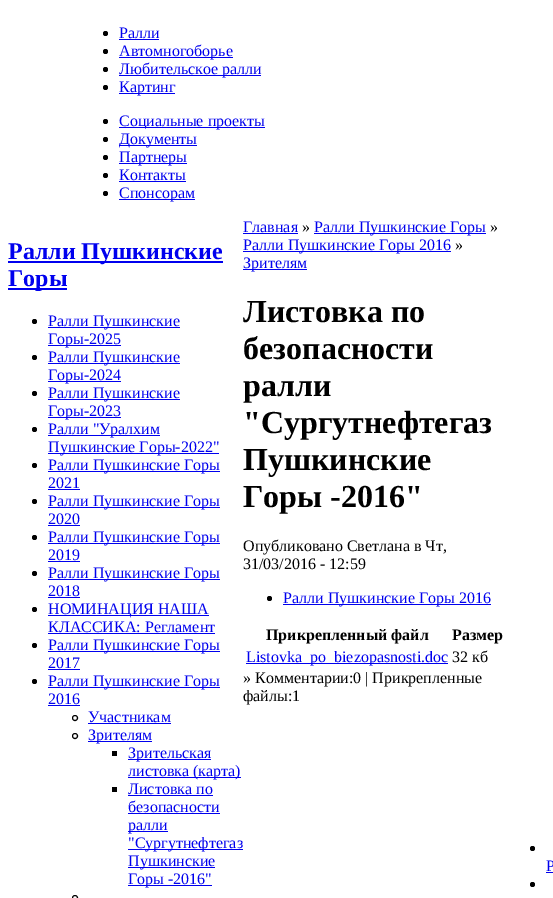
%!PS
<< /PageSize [553 898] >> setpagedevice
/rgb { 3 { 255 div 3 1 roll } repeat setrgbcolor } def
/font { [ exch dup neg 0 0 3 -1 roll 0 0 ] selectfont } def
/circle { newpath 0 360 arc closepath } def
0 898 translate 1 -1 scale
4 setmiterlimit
255 255 255 rgb
0 0 553 898 rectfill
0 0 0 rgb
105.5 33.5 2.5 circle fill
0 0 238 rgb
119 39 40 1 rectfill
0 0 0 rgb
105.5 51.5 2.5 circle fill
0 0 238 rgb
119 57 114 1 rectfill
0 0 0 rgb
105.5 69.5 2.5 circle fill
0 0 238 rgb
119 75 142 1 rectfill
0 0 0 rgb
105.5 87.5 2.5 circle fill
0 0 238 rgb
119 93 56 1 rectfill
0 0 0 rgb
105.5 121.5 2.5 circle fill
0 0 238 rgb
119 127 146 1 rectfill
0 0 0 rgb
105.5 139.5 2.5 circle fill
0 0 238 rgb
119 145 78 1 rectfill
0 0 0 rgb
105.5 157.5 2.5 circle fill
0 0 238 rgb
119 163 68 1 rectfill
0 0 0 rgb
105.5 175.5 2.5 circle fill
0 0 238 rgb
119 181 67 1 rectfill
0 0 0 rgb
105.5 193.5 2.5 circle fill
[
  [119 199 76 1 0 0 238]
  [8 261 215 2 0 0 238]
  [8 288 59 2 0 0 238]
] { aload pop rgb rectfill } forall
0 0 0 rgb
34.5 321.5 2.5 circle fill
0 0 238 rgb
48 327 132 1 rectfill
48 345 73 1 rectfill
0 0 0 rgb
34.5 357.5 2.5 circle fill
0 0 238 rgb
48 363 132 1 rectfill
48 381 73 1 rectfill
0 0 0 rgb
34.5 393.5 2.5 circle fill
0 0 238 rgb
48 399 132 1 rectfill
48 417 73 1 rectfill
0 0 0 rgb
34.5 429.5 2.5 circle fill
0 0 238 rgb
48 435 112 1 rectfill
48 453 171 1 rectfill
0 0 0 rgb
34.5 465.5 2.5 circle fill
0 0 238 rgb
48 471 172 1 rectfill
48 489 32 1 rectfill
0 0 0 rgb
34.5 501.5 2.5 circle fill
0 0 238 rgb
48 507 172 1 rectfill
48 525 32 1 rectfill
0 0 0 rgb
34.5 537.5 2.5 circle fill
0 0 238 rgb
48 543 172 1 rectfill
48 561 32 1 rectfill
0 0 0 rgb
34.5 573.5 2.5 circle fill
0 0 238 rgb
48 579 172 1 rectfill
48 597 32 1 rectfill
0 0 0 rgb
34.5 609.5 2.5 circle fill
0 0 238 rgb
48 615 161 1 rectfill
48 633 167 1 rectfill
0 0 0 rgb
34.5 645.5 2.5 circle fill
0 0 238 rgb
48 651 172 1 rectfill
48 669 32 1 rectfill
0 0 0 rgb
34.5 681.5 2.5 circle fill
0 0 238 rgb
48 687 172 1 rectfill
48 705 32 1 rectfill
0 0 0 rgb
75 718 2.5 circle stroke
0 0 238 rgb
88 723 83 1 rectfill
0 0 0 rgb
75 736 2.5 circle stroke
[
  [88 741 64 1 0 0 238]
  [112 751 5 5 0 0 0]
  [128 759 83 1 0 0 238]
  [128 777 113 1 0 0 238]
  [112 787 5 5 0 0 0]
  [128 795 85 1 0 0 238]
  [128 813 92 1 0 0 238]
  [128 831 40 1 0 0 238]
  [128 849 115 1 0 0 238]
  [128 867 87 1 0 0 238]
  [128 885 84 1 0 0 238]
] { aload pop rgb rectfill } forall
0 0 0 rgb
75 898 2.5 circle stroke
[
  [243 233 55 1 0 0 238]
  [314 233 172 1 0 0 238]
  [243 251 208 1 0 0 238]
  [243 269 64 1 0 0 238]
] { aload pop rgb rectfill } forall
0 0 0 rgb
269.5 598.5 2.5 circle fill
0 0 238 rgb
283 604 208 1 rectfill
246 663 202 1 rectfill
0 0 0 rgb
532.5 848.5 2.5 circle fill
0 0 238 rgb
546 872 7 1 rectfill
0 0 0 rgb
532.5 884.5 2.5 circle fill
/LiberationSerif-Regular 16 font
0 0 238 rgb
[
  [(Ралли) 119 38]
  [(Автомногоборье) 119 56]
  [(Любительское ралли) 119 74]
  [(Картинг) 119 92]
  [(Социальные проекты) 119 126]
  [(Документы) 119 144]
  [(Партнеры) 119 162]
  [(Контакты) 119 180]
  [(Спонсорам) 119 198]
] { aload pop moveto show } forall
/LiberationSerif-Bold 24 font
8 259 moveto (Ралли Пушкинские) show
8 286 moveto (Горы) show
/LiberationSerif-Regular 16 font
[
  [(Ралли Пушкинские) 48 326]
  [(Горы-2025) 48 344]
  [(Ралли Пушкинские) 48 362]
  [(Горы-2024) 48 380]
  [(Ралли Пушкинские) 48 398]
  [(Горы-2023) 48 416]
  [(Ралли "Уралхим) 48 434]
  [(Пушкинские Горы-2022") 48 452]
  [(Ралли Пушкинские Горы) 48 470]
  [(2021) 48 488]
  [(Ралли Пушкинские Горы) 48 506]
  [(2020) 48 524]
  [(Ралли Пушкинские Горы) 48 542]
  [(2019) 48 560]
  [(Ралли Пушкинские Горы) 48 578]
  [(2018) 48 596]
  [(НОМИНАЦИЯ НАША) 48 614]
  [(КЛАССИКА: Регламент) 48 632]
  [(Ралли Пушкинские Горы) 48 650]
  [(2017) 48 668]
  [(Ралли Пушкинские Горы) 48 686]
  [(2016) 48 704]
  [(Участникам) 88 722]
  [(Зрителям) 88 740]
  [(Зрительская) 128 758]
  [(листовка \(карта\)) 128 776]
  [(Листовка по) 128 794]
  [(безопасности) 128 812]
  [(ралли) 128 830]
  [("Сургутнефтегаз) 128 848]
  [(Пушкинские) 128 866]
  [(Горы -2016") 128 884]
  [(Главная) 243 232]
] { aload pop moveto show } forall
0 0 0 rgb
302 232 moveto (») show
0 0 238 rgb
314 232 moveto (Ралли Пушкинские Горы) show
0 0 0 rgb
490 232 moveto (») show
0 0 238 rgb
243 250 moveto (Ралли Пушкинские Горы 2016) show
0 0 0 rgb
455 250 moveto (») show
0 0 238 rgb
243 268 moveto (Зрителям) show
/LiberationSerif-Bold 32 font
0 0 0 rgb
[
  [(Листовка по) 243 322]
  [(безопасности) 243 359]
  [(ралли) 243 396]
  [("Сургутнефтегаз) 243 433]
  [(Пушкинские) 243 470]
  [(Горы -2016") 243 507]
] { aload pop moveto show } forall
/LiberationSerif-Regular 16 font
243 551 moveto (Опубликовано Светлана в Чт,) show
243 569 moveto (31/03/2016 - 12:59) show
0 0 238 rgb
283 603 moveto (Ралли Пушкинские Горы 2016) show
/LiberationSerif-Bold 16 font
0 0 0 rgb
266 640 moveto (Прикрепленный файл) show
452 640 moveto (Размер) show
/LiberationSerif-Regular 16 font
0 0 238 rgb
246 662 moveto (Listovka_po_biezopasnosti.doc) show
0 0 0 rgb
[
  [(32 кб) 452 662]
  [(» Комментарии:0 | Прикрепленные) 243 683]
  [(файлы:1) 243 701]
] { aload pop moveto show } forall
0 0 238 rgb
546 871 moveto (Р) show
showpage
